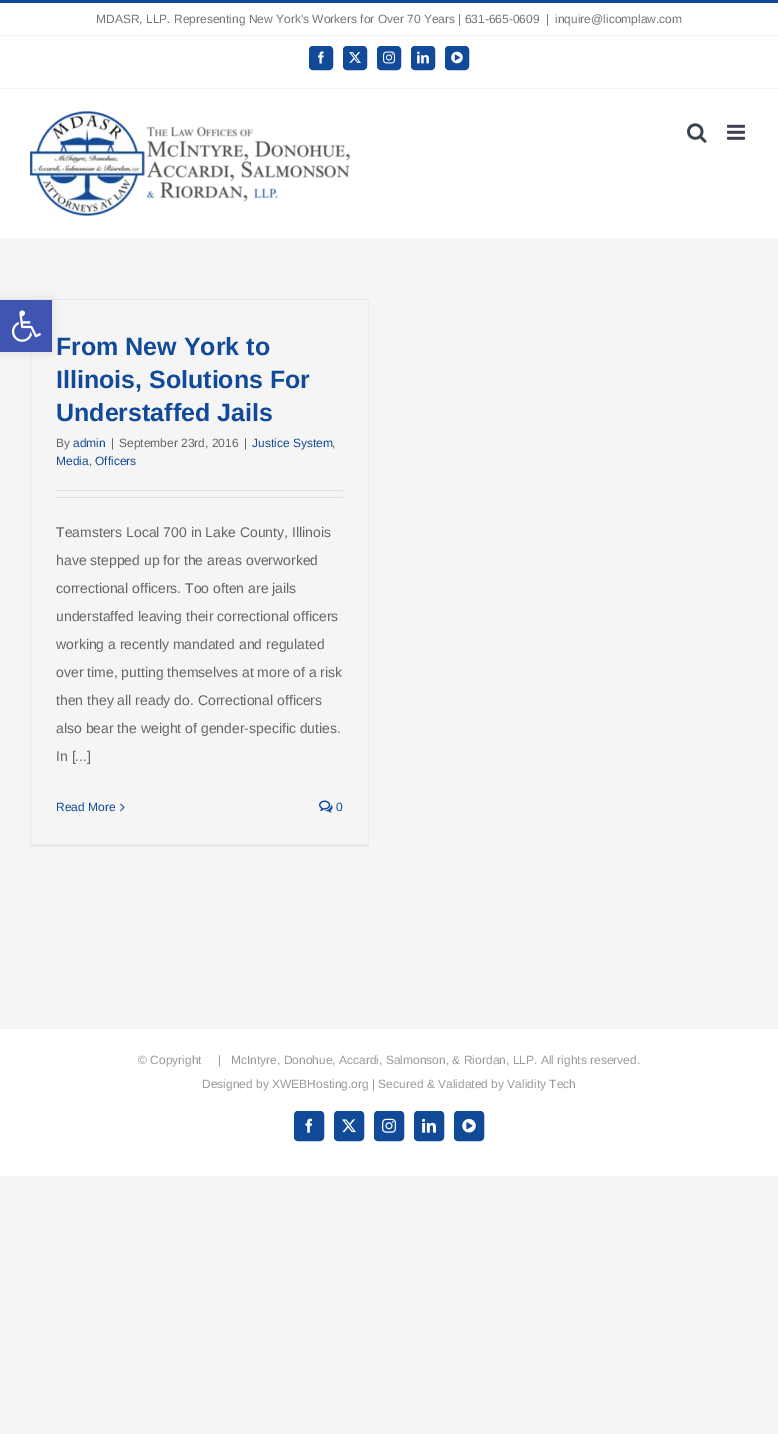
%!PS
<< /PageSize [778 1434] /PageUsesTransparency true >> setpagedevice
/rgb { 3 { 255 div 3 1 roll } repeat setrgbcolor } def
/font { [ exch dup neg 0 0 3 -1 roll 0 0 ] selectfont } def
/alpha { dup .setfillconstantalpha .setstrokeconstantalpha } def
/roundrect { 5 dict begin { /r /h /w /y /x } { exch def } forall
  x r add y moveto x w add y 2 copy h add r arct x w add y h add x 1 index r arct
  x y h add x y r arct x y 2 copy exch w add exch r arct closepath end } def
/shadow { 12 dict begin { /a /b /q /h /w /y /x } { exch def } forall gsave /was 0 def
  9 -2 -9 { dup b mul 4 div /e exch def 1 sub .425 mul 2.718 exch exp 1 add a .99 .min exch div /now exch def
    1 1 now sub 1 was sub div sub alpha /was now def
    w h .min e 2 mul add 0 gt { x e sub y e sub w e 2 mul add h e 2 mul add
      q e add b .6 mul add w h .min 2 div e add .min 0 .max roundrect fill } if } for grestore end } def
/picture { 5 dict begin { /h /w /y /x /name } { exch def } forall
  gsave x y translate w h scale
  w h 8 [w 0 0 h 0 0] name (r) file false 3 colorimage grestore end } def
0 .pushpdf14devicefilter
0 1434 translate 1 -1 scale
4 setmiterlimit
245 245 245 rgb
0 0 778 1434 rectfill
[
  [30 299 339 1 235 234 234]
  [368 299 1 548 235 234 234]
  [30 844 339 3 235 234 234]
  [30 299 1 548 235 234 234]
] { aload pop rgb rectfill } forall
0 0 0 rgb
0 300 52 52 0 5 0.1 shadow
64 84 178 rgb
0 300 52 52 rectfill
(img/1.rgb) 11 310 30 32 picture
[
  [0 3 778 85 255 255 255]
  [0 0 778 3 17 74 153]
  [0 35 778 1 245 245 245]
] { aload pop rgb rectfill } forall
17 74 153 rgb
309.5 46.5 23 23 3.5 roundrect gsave fill grestore
stroke
(img/2.rgb) 318 51 6 13 picture
343.5 46.5 23 23 3.5 roundrect gsave fill grestore
stroke
(img/3.rgb) 349 52 12 11 picture
377.5 46.5 23 23 3.5 roundrect gsave fill grestore
stroke
(img/4.rgb) 383 51 12 13 picture
411.5 46.5 23 23 3.5 roundrect gsave fill grestore
stroke
(img/5.rgb) 417 51 12 13 picture
445.5 46.5 23 23 3.5 roundrect gsave fill grestore
stroke
(img/6.rgb) 451 51 12 13 picture
255 255 255 rgb
0 89 778 149 rectfill
(img/7.rgb) 30 110 321 107 picture
(img/8.rgb) 687 123 20 20 picture
(img/9.rgb) 727 124 18 16 picture
224 222 222 rgb
56 490 287 1 rectfill
56 497 287 1 rectfill
(img/10.rgb) 120 803 5 9 picture
(img/11.rgb) 319 800 14 13 picture
255 255 255 rgb
0 1029 778 147 rectfill
17 74 153 rgb
294.5 1111.5 29 29 3.5 roundrect gsave fill grestore
stroke
(img/12.rgb) 305 1118 8 15 picture
334.5 1111.5 29 29 3.5 roundrect gsave fill grestore
stroke
(img/13.rgb) 342 1119 14 14 picture
374.5 1111.5 29 29 3.5 roundrect gsave fill grestore
stroke
(img/14.rgb) 382 1118 14 15 picture
414.5 1111.5 29 29 3.5 roundrect gsave fill grestore
stroke
(img/15.rgb) 422 1118 14 15 picture
454.5 1111.5 29 29 3.5 roundrect gsave fill grestore
stroke
(img/16.rgb) 462 1119 14 14 picture
/LiberationSans-Regular 12 font
116 116 116 rgb
[
  [(MDASR, LLP. Representing New York's Workers for Over 70 Years | 631-665-0609) 96 23]
  [(|) 546 23]
  [(inquire@licomplaw.com) 555 23]
] { aload pop moveto show } forall
/LiberationSans-Bold 25 font
17 74 153 rgb
[
  [(From New York to) 56 355]
  [(Illinois, Solutions For) 56 388]
  [(Understaffed Jails) 56 421]
] { aload pop moveto show } forall
/LiberationSans-Regular 12 font
102 102 102 rgb
56 447 moveto (By) show
17 74 153 rgb
73 447 moveto (admin) show
102 102 102 rgb
[
  [(|) 111 447]
  [(September 23rd, 2016) 119 447]
  [(|) 244 447]
] { aload pop moveto show } forall
17 74 153 rgb
252 447 moveto (Justice System) show
102 102 102 rgb
332 447 moveto (,) show
17 74 153 rgb
56 465 moveto (Media) show
102 102 102 rgb
89 465 moveto (,) show
17 74 153 rgb
95 465 moveto (Officers) show
/LiberationSans-Regular 14 font
102 102 102 rgb
[
  [(Teamsters Local 700 in Lake County, Illinois) 56 537]
  [(have stepped up for the areas overworked) 56 565]
  [(correctional officers. Too often are jails) 56 593]
  [(understaffed leaving their correctional officers) 56 621]
  [(working a recently mandated and regulated) 56 649]
  [(over time, putting themselves at more of a risk) 56 677]
  [(then they all ready do. Correctional officers) 56 705]
  [(also bear the weight of gender-specific duties.) 56 733]
  [(In [...]) 56 761]
] { aload pop moveto show } forall
/LiberationSans-Regular 12 font
17 74 153 rgb
56 811 moveto (Read More) show
336 811 moveto (0) show
153 153 153 rgb
[
  [(© Copyright) 138 1064]
  [(|   McIntyre, Donohue, Accardi, Salmonson, & Riordan, LLP. All rights reserved.) 218 1064]
  [(Designed by XWEBHosting.org | Secured & Validated by Validity Tech) 202 1088]
] { aload pop moveto show } forall
.poppdf14devicefilter showpage
